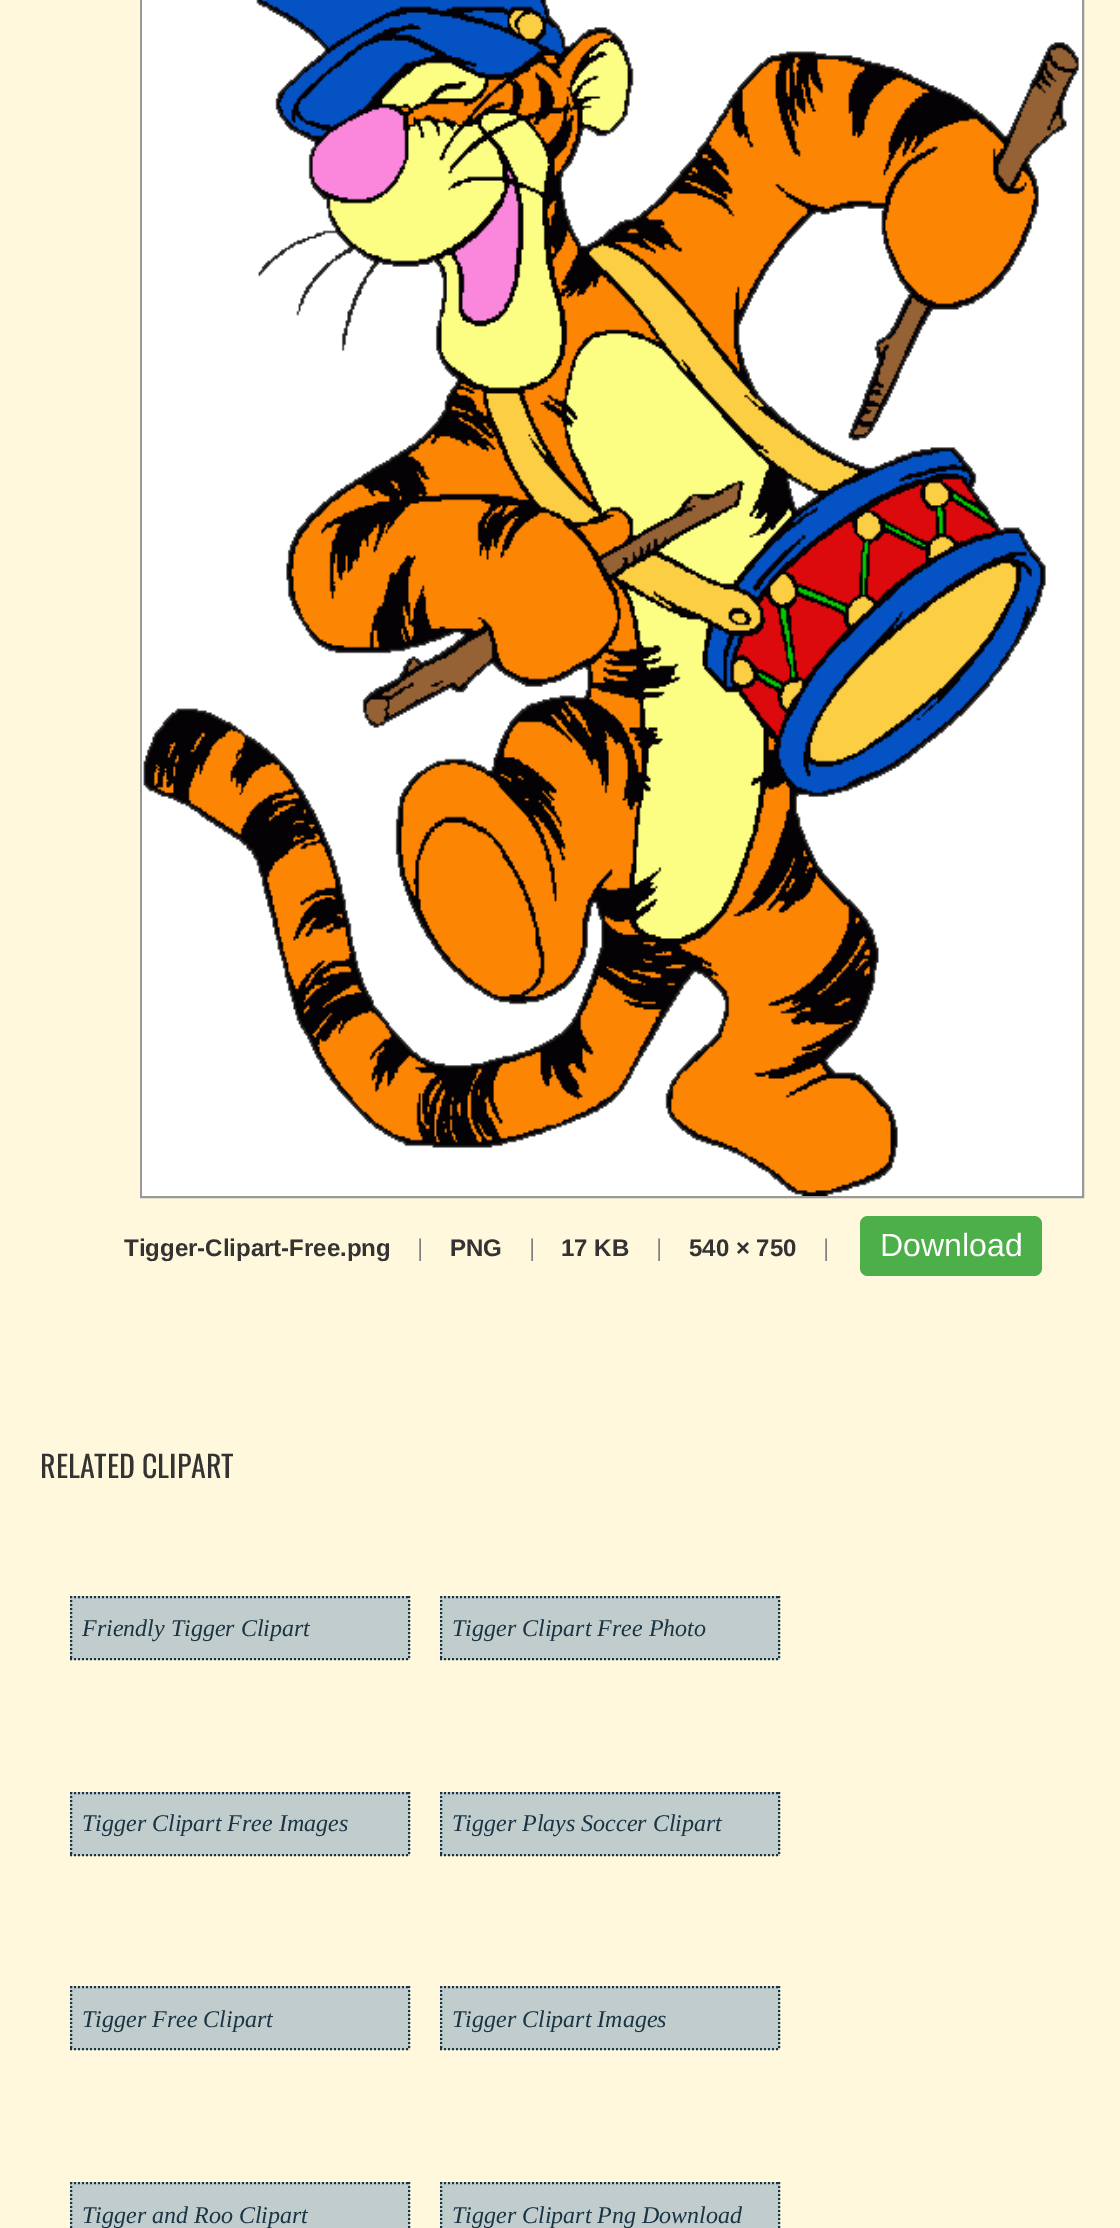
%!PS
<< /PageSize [1120 2228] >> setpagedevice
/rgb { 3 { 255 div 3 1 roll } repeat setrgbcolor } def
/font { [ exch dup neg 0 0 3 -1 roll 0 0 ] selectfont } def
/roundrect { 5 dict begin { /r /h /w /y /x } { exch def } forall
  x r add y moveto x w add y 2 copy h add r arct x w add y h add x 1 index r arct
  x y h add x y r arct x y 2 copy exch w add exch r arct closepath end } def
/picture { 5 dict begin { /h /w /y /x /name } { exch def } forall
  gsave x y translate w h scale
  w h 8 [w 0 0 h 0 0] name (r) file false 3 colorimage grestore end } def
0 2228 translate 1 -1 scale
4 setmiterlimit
255 248 220 rgb
0 0 1120 2228 rectfill
153 153 153 rgb
2 setlinewidth
141 -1 942 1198 rectstroke
(img/1.rgb) 142 0 940 1196 picture
76 175 74 rgb
860 1216 182 60 8 roundrect fill
193 205 205 rgb
70 1596 340 64 rectfill
26 52 68 rgb
[2 2] 0 setdash
70 1597 moveto 410 1597 lineto stroke
409 1596 moveto 409 1660 lineto stroke
70 1659 moveto 410 1659 lineto stroke
71 1596 moveto 71 1660 lineto stroke
193 205 205 rgb
440 1596 340 64 rectfill
26 52 68 rgb
440 1597 moveto 780 1597 lineto stroke
779 1596 moveto 779 1660 lineto stroke
440 1659 moveto 780 1659 lineto stroke
441 1596 moveto 441 1660 lineto stroke
193 205 205 rgb
70 1792 340 64 rectfill
26 52 68 rgb
70 1793 moveto 410 1793 lineto stroke
409 1792 moveto 409 1856 lineto stroke
70 1855 moveto 410 1855 lineto stroke
71 1792 moveto 71 1856 lineto stroke
193 205 205 rgb
440 1792 340 64 rectfill
26 52 68 rgb
440 1793 moveto 780 1793 lineto stroke
779 1792 moveto 779 1856 lineto stroke
440 1855 moveto 780 1855 lineto stroke
441 1792 moveto 441 1856 lineto stroke
193 205 205 rgb
70 1986 340 64 rectfill
26 52 68 rgb
70 1987 moveto 410 1987 lineto stroke
409 1986 moveto 409 2050 lineto stroke
70 2049 moveto 410 2049 lineto stroke
71 1986 moveto 71 2050 lineto stroke
193 205 205 rgb
440 1986 340 64 rectfill
26 52 68 rgb
440 1987 moveto 780 1987 lineto stroke
779 1986 moveto 779 2050 lineto stroke
440 2049 moveto 780 2049 lineto stroke
441 1986 moveto 441 2050 lineto stroke
193 205 205 rgb
70 2182 340 46 rectfill
26 52 68 rgb
70 2183 moveto 410 2183 lineto stroke
409 2182 moveto 409 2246 lineto stroke
71 2182 moveto 71 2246 lineto stroke
193 205 205 rgb
440 2182 340 46 rectfill
26 52 68 rgb
440 2183 moveto 780 2183 lineto stroke
779 2182 moveto 779 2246 lineto stroke
441 2182 moveto 441 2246 lineto stroke
/LiberationSans-Bold 24 font
51 51 51 rgb
124 1256 moveto (Tigger-Clipart-Free.png) show
/LiberationSans-Regular 24 font
128 128 128 rgb
417 1256 moveto (|) show
/LiberationSans-Bold 24 font
51 51 51 rgb
450 1256 moveto (PNG) show
/LiberationSans-Regular 24 font
128 128 128 rgb
529 1256 moveto (|) show
/LiberationSans-Bold 24 font
51 51 51 rgb
561 1256 moveto (17 KB) show
/LiberationSans-Regular 24 font
128 128 128 rgb
656 1256 moveto (|) show
/LiberationSans-Bold 24 font
51 51 51 rgb
689 1256 moveto (540 × 750) show
/LiberationSans-Regular 24 font
128 128 128 rgb
823 1256 moveto (|) show
/LiberationSans-Regular 32 font
255 255 255 rgb
880 1256 moveto (Download) show
/Oswald-Regular 30 font
51 51 51 rgb
40 1478 moveto (RELATED CLIPART) show
/LiberationSerif-Italic 24 font
26 52 68 rgb
[
  [(Friendly Tigger Clipart) 82 1636]
  [(Tigger Clipart Free Photo) 452 1636]
  [(Tigger Clipart Free Images) 82 1831]
  [(Tigger Plays Soccer Clipart) 452 1831]
  [(Tigger Free Clipart) 82 2027]
  [(Tigger Clipart Images) 452 2027]
  [(Tigger and Roo Clipart) 82 2223]
  [(Tigger Clipart Png Download) 452 2223]
] { aload pop moveto show } forall
showpage
